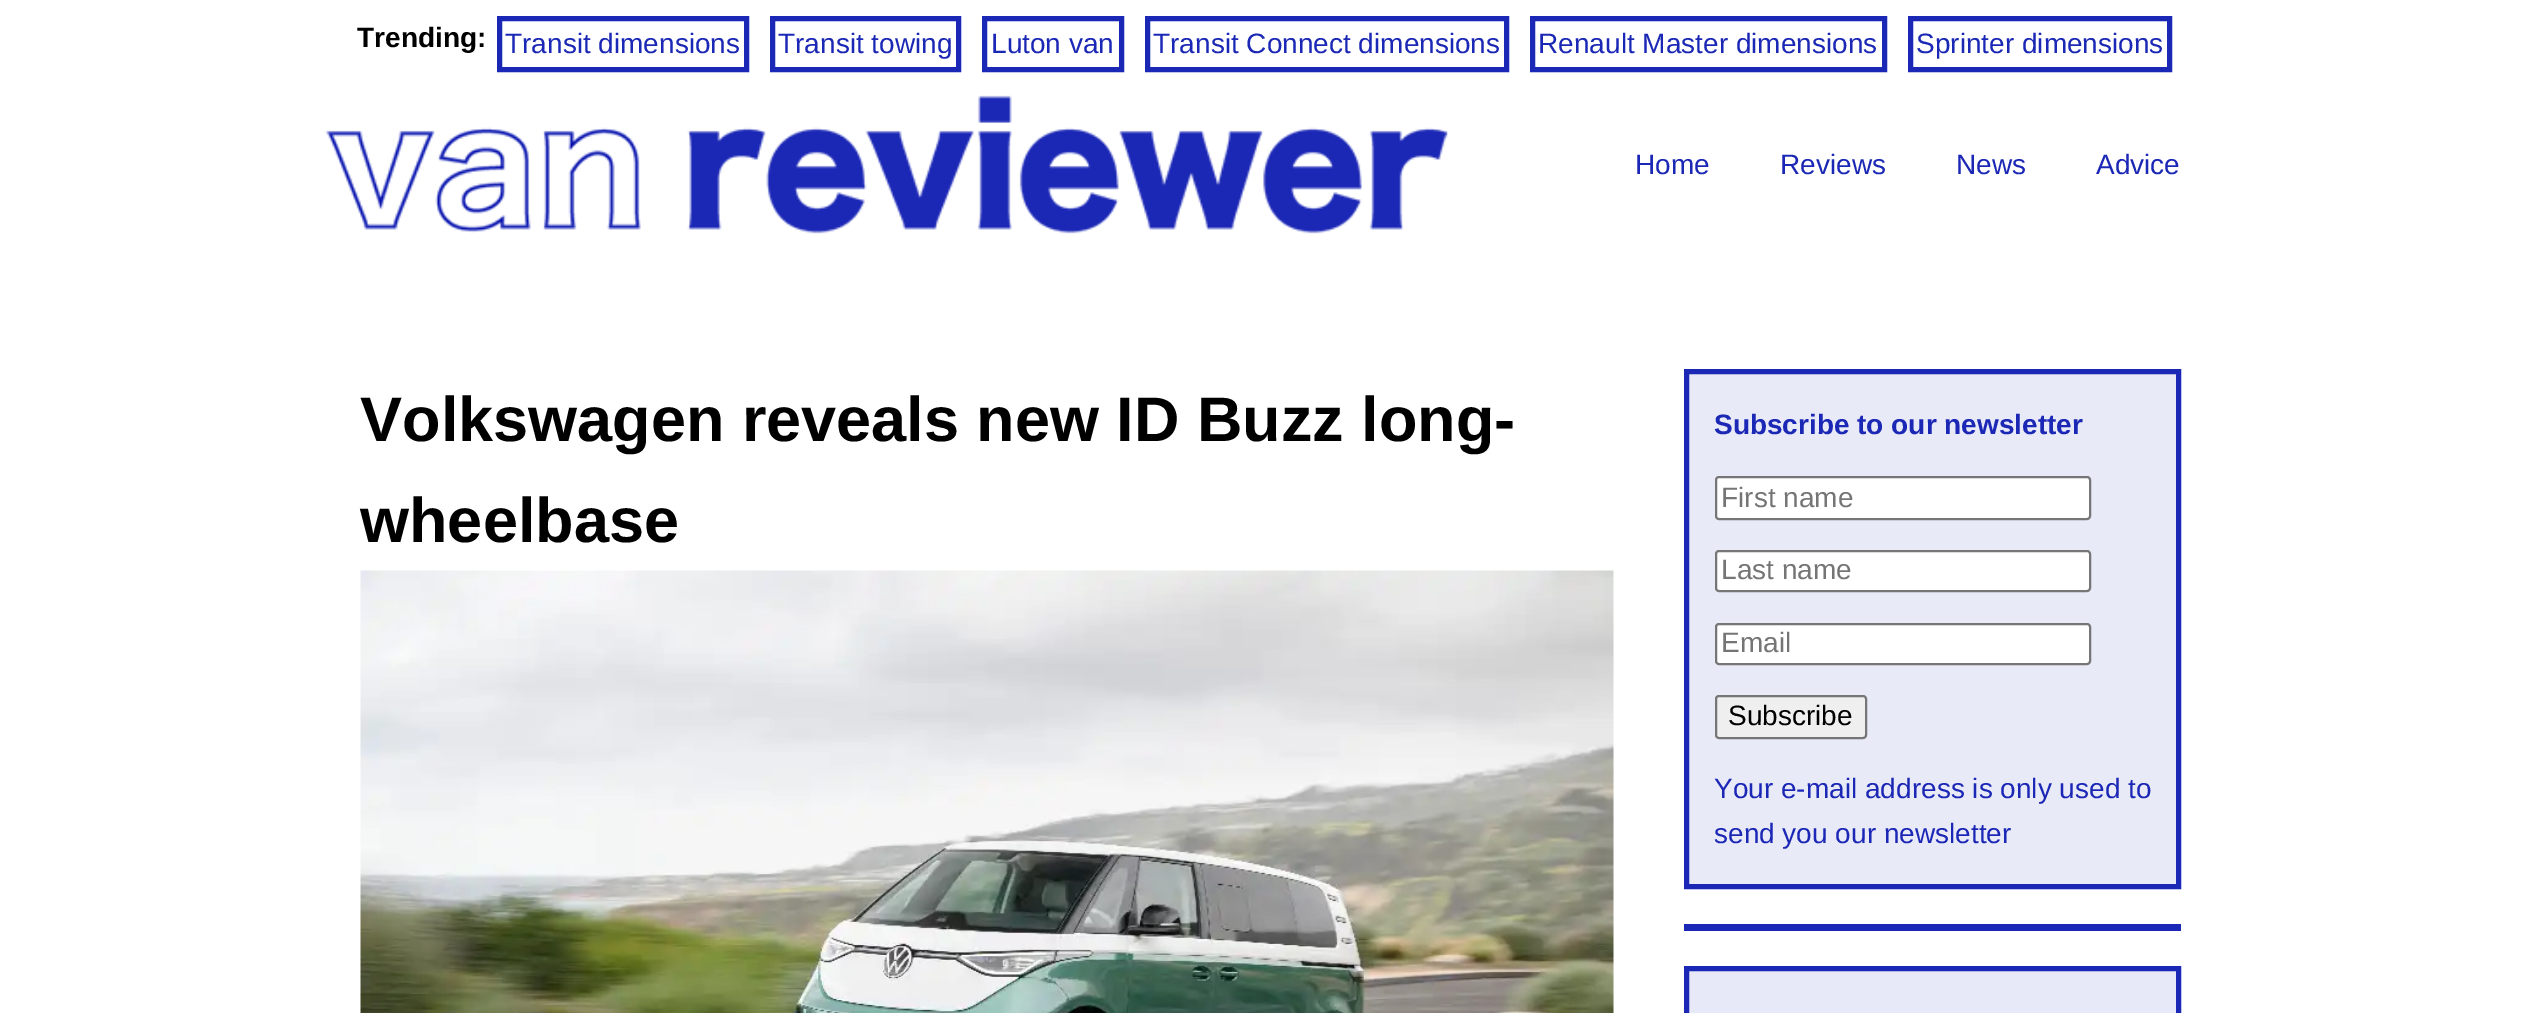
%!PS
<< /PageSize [2539 1013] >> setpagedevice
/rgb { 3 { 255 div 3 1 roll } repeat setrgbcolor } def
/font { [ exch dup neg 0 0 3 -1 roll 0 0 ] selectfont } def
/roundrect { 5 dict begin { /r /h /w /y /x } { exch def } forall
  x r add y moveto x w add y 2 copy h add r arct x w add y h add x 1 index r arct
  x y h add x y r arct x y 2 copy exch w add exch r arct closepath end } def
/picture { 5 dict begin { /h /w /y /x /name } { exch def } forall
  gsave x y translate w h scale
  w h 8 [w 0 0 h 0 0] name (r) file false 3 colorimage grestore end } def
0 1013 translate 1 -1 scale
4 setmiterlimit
255 255 255 rgb
0 0 2539 1013 rectfill
27 39 181 rgb
5 setlinewidth
499.5 18.5 247 51 rectstroke
772.5 18.5 186 51 rectstroke
984.5 18.5 137 51 rectstroke
1147.5 18.5 359 51 rectstroke
1532.5 18.5 352 51 rectstroke
1910.5 18.5 259 51 rectstroke
(img/1.rgb) 325 95 1123 139 picture
(img/2.rgb) 360 570 1254 443 picture
233 234 248 rgb
1686.5 371.5 moveto 2178.5 371.5 lineto 2178.5 886.5 lineto 1686.5 886.5 lineto closepath gsave fill grestore
27 39 181 rgb
stroke
255 255 255 rgb
1716 477 374 42 3 roundrect gsave fill grestore
118 118 118 rgb
2 setlinewidth
stroke
255 255 255 rgb
1716 551 374 40 3 roundrect gsave fill grestore
118 118 118 rgb
stroke
255 255 255 rgb
1716 624 374 40 3 roundrect gsave fill grestore
118 118 118 rgb
stroke
239 239 239 rgb
1716 696 150 42 3 roundrect gsave fill grestore
118 118 118 rgb
stroke
27 39 181 rgb
1684 924 497 7 rectfill
232 233 248 rgb
1686.5 968.5 moveto 2178.5 968.5 lineto 2178.5 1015.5 lineto 1686.5 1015.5 lineto closepath gsave fill grestore
27 39 181 rgb
5 setlinewidth
stroke
/LiberationSans-Bold 28 font
0 0 0 rgb
357 47 moveto (Trending:) show
/LiberationSans-Regular 28 font
27 39 181 rgb
[
  [(Transit dimensions) 505 53]
  [(Transit towing) 778 53]
  [(Luton van) 991 53]
  [(Transit Connect dimensions) 1153 53]
  [(Renault Master dimensions) 1538 53]
  [(Sprinter dimensions) 1916 53]
  [(Home) 1635 174]
  [(Reviews) 1780 174]
  [(News) 1956 174]
  [(Advice) 2096 174]
] { aload pop moveto show } forall
/LiberationSans-Bold 63 font
0 0 0 rgb
360 441 moveto (Volkswagen reveals new ID Buzz long-) show
360 542 moveto (wheelbase) show
/LiberationSans-Bold 28 font
27 39 181 rgb
1714 434 moveto (Subscribe to our newsletter) show
/LiberationSans-Regular 28 font
117 117 117 rgb
[
  [(First name) 1721 507]
  [(Last name) 1721 579]
  [(Email) 1721 652]
] { aload pop moveto show } forall
0 0 0 rgb
1728 725 moveto (Subscribe) show
27 39 181 rgb
1714 798 moveto (Your e-mail address is only used to) show
1714 843 moveto (send you our newsletter) show
showpage
